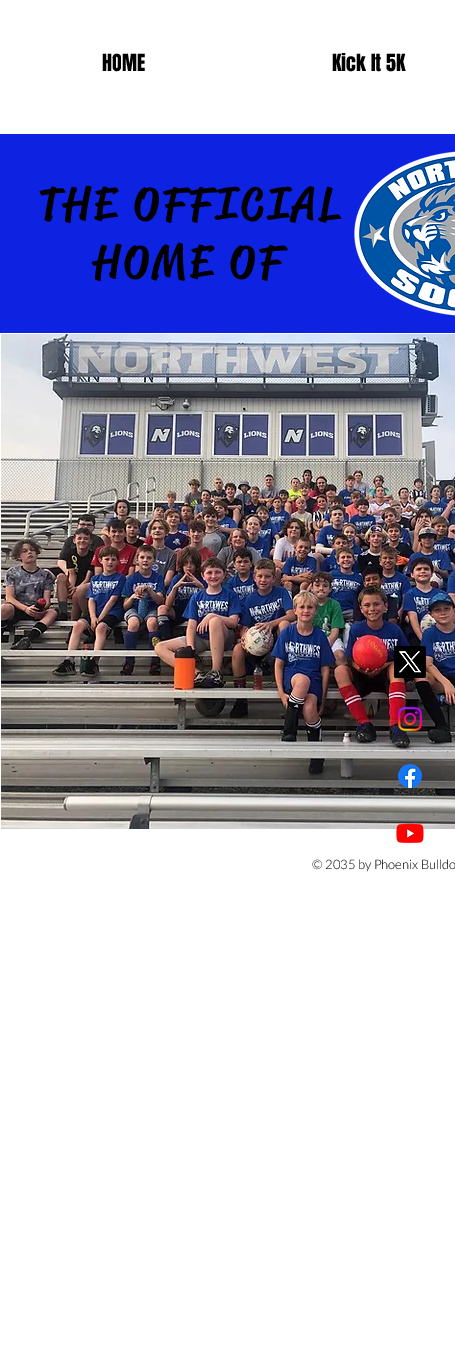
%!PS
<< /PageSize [455 1367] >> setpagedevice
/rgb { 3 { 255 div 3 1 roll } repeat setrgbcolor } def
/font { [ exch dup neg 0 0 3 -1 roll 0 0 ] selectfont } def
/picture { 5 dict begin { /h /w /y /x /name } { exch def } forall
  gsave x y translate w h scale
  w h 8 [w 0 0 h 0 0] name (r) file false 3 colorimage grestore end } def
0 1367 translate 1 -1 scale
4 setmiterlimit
255 255 255 rgb
0 0 455 1367 rectfill
14 34 226 rgb
0 134 455 199 rectfill
(img/1.rgb) 354 151 101 165 picture
(img/2.rgb) 1 334 454 495 picture
(img/3.rgb) 394 646 32 32 picture
(img/4.rgb) 398 706 25 26 picture
(img/5.rgb) 397 763 26 26 picture
(img/6.rgb) 396 823 28 21 picture
/Anton-Regular 20 font
0 0 0 rgb
102 71 moveto (HOME) show
332 71 moveto (Kick It 5K) show
/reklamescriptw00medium-Medium 45 font
39 219 moveto 4.5 0 (THE OFFICIAL) ashow
94 277 moveto 4.5 0 (HOME OF) ashow
/Lato-Light 13 font
312 869 moveto (© 2035 by Phoenix Bulldo) show
showpage
